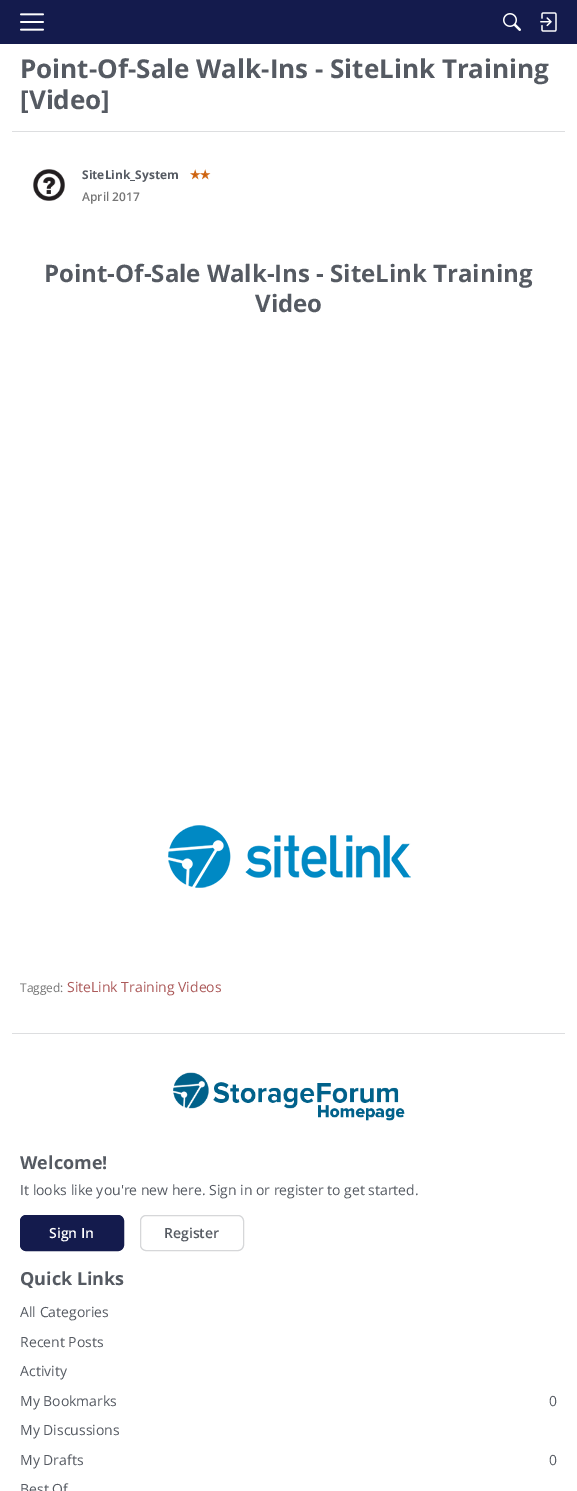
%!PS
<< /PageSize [577 1491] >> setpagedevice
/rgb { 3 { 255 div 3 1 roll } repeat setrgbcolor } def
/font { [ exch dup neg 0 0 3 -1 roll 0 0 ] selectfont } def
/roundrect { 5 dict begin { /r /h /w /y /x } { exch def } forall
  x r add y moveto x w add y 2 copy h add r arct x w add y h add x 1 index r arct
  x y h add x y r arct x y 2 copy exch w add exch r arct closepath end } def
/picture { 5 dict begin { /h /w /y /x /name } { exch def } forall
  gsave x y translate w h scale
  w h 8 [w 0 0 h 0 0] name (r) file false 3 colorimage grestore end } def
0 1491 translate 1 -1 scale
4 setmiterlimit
255 255 255 rgb
0 0 577 1491 rectfill
20 27 77 rgb
0 0 577 44 rectfill
(img/1.rgb) 20 13 24 18 picture
(img/2.rgb) 503 13 18 18 picture
(img/3.rgb) 540 12 17 20 picture
221 222 224 rgb
12 131 553 1 rectfill
(img/4.rgb) 33 169 32 32 picture
(img/5.rgb) 168 825 243 63 picture
12 1033 553 1 rectfill
(img/6.rgb) 173 1072 232 49 picture
20 27 77 rgb
20.5 1215.5 103 35 5.5 roundrect gsave fill grestore
stroke
214 215 217 rgb
140.5 1215.5 103 35 5.5 roundrect stroke
/OpenSans-Bold 26 font
85 90 98 rgb
20 78 moveto (Point-Of-Sale Walk-Ins - SiteLink Training) show
20 109 moveto ([Video]) show
/OpenSans-Bold 12 font
82 179 moveto (SiteLink_System) show
/DejaVuSans-Bold 12 font
205 95 9 rgb
190 179 moveto (✭✭) show
/OpenSans-SemiBold 12 font
118 118 118 rgb
82 201 moveto (April 2017) show
/OpenSans-Bold 24 font
85 90 98 rgb
44 282 moveto (Point-Of-Sale Walk-Ins - SiteLink Training) show
255 312 moveto (Video) show
/OpenSans-Regular 12 font
118 118 118 rgb
20 992 moveto (Tagged:) show
/OpenSans-Regular 14 font
172 90 90 rgb
67 992 moveto (SiteLink Training Videos) show
/OpenSans-Bold 18 font
85 90 98 rgb
20 1169 moveto (Welcome!) show
/OpenSans-Regular 14 font
20 1195 moveto (It looks like you're new here. Sign in or register to get started.) show
/OpenSans-SemiBold 14 font
255 255 255 rgb
49 1238 moveto (Sign In) show
85 90 98 rgb
164 1238 moveto (Register) show
/OpenSans-Bold 18 font
20 1285 moveto (Quick Links) show
/OpenSans-Regular 14 font
[
  [(All Categories) 20 1317]
  [(Recent Posts) 20 1347]
  [(Activity) 20 1376]
  [(My Bookmarks) 20 1406]
  [(0) 549 1406]
  [(My Discussions) 20 1435]
  [(My Drafts) 20 1465]
  [(0) 549 1465]
  [(Best Of) 20 1494]
] { aload pop moveto show } forall
showpage
